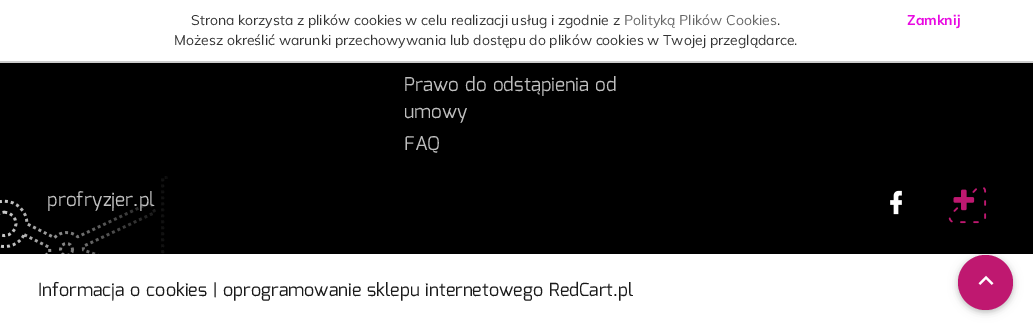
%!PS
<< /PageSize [1033 330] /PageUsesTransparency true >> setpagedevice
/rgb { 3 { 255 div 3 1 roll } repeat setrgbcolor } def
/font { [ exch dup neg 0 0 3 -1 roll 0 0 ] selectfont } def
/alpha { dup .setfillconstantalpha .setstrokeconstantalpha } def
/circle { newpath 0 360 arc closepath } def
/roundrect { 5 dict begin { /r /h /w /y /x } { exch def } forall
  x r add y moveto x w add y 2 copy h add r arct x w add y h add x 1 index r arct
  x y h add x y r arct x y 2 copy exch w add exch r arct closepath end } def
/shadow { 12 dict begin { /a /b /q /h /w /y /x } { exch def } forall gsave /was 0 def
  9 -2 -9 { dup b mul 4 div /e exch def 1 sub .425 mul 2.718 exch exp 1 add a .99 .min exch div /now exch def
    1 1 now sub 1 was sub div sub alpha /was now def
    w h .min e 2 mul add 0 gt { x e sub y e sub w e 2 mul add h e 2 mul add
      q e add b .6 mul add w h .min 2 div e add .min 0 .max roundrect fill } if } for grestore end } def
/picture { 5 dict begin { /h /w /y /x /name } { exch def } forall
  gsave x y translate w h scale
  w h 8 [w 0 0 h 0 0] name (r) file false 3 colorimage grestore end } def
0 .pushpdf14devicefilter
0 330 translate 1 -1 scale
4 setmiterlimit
255 255 255 rgb
0 0 1033 330 rectfill
204 204 204 rgb
0 61 1033 2 rectfill
0 0 0 rgb
0 63 1033 191 rectfill
(img/1.rgb) 0 176 168 78 picture
(img/2.rgb) 890 190 12 25 picture
(img/3.rgb) 948 187 39 37 picture
958 257 55 55 27.5 5 0.12 shadow
958 257 55 55 27.5 2.5 0.16 shadow
191 24 112 rgb
985.5 282.5 27.5 circle fill
(img/4.rgb) 978 275 16 10 picture
/Muli-Regular 14 font
51 51 51 rgb
191 25 moveto (Strona korzysta z plików cookies w celu realizacji usług i zgodnie z) show
102 102 102 rgb
624 25 moveto (Polityką Plików Cookies) show
51 51 51 rgb
777 25 moveto (.) show
174 45 moveto (Możesz określić warunki przechowywania lub dostępu do plików cookies w Twojej przeglądarce.) show
/Muli-Bold 14 font
232 9 225 rgb
907 25 moveto (Zamknij) show
/Mina-Regular 19 font
191 191 191 rgb
[
  [(Prawo do odstąpienia od) 404 91]
  [(umowy) 404 118]
  [(FAQ) 404 150]
  [(profryzjer.pl) 47 206]
] { aload pop moveto show } forall
/Mina-Regular 18 font
26 26 26 rgb
38 296 moveto (Informacja o cookies | oprogramowanie sklepu internetowego RedCart.pl) show
.poppdf14devicefilter showpage
